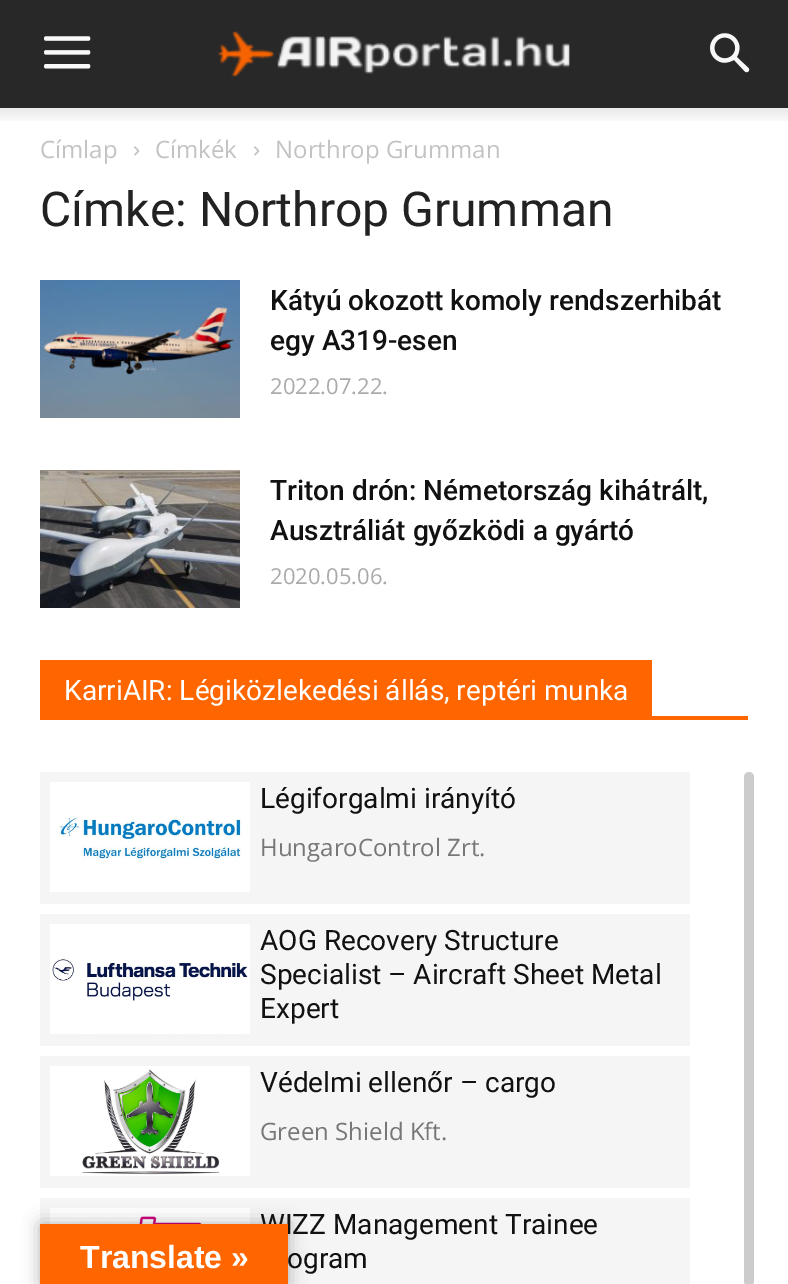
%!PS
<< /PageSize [788 1284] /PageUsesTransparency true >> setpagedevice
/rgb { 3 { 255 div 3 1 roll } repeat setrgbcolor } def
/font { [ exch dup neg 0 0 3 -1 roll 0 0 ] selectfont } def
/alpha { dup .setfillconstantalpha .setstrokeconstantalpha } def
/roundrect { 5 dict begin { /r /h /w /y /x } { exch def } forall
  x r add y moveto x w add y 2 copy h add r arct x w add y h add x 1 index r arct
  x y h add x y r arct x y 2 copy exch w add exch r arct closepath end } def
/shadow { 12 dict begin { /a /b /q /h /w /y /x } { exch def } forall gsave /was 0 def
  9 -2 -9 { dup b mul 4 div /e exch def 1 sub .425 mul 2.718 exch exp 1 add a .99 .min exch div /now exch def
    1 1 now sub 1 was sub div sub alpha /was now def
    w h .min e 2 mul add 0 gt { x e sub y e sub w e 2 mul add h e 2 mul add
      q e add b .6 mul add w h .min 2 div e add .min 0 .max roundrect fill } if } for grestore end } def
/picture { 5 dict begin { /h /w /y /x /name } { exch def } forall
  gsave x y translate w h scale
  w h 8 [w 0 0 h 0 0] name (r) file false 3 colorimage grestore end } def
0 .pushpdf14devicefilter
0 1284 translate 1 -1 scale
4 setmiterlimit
255 255 255 rgb
0 0 788 1284 rectfill
40 40 40 rgb
0 0 788 108 rectfill
(img/1.rgb) 44 36 47 33 picture
(img/2.rgb) 218 31 352 46 picture
(img/3.rgb) 710 33 40 40 picture
(img/4.rgb) 0 108 788 13 picture
(img/5.rgb) 134 146 6 10 picture
(img/5.rgb) 254 146 6 10 picture
(img/6.rgb) 40 280 200 138 picture
(img/7.rgb) 40 470 200 138 picture
[
  [40 716 708 4 255 102 0]
  [40 660 612 56 255 102 0]
  [40 772 650 132 245 245 245]
] { aload pop rgb rectfill } forall
(img/8.rgb) 50 782 200 110 picture
40 914 650 132 rectfill
(img/9.rgb) 50 924 200 110 picture
40 1056 650 132 rectfill
(img/10.rgb) 50 1066 200 110 picture
40 1198 650 86 rectfill
(img/11.rgb) 50 1208 200 16 picture
204 204 204 rgb
744 772 10 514 5 roundrect fill
0 0 0 rgb
40 1224 248 60 0 9 0.3 shadow
/OpenSans-Regular 24 font
195 195 195 rgb
[
  [(Címlap) 40 158]
  [(Címkék) 155 158]
  [(Northrop Grumman) 275 158]
] { aload pop moveto show } forall
/Roboto-Regular 48 font
34 34 34 rgb
40 226 moveto (Címke: Northrop Grumman) show
/Roboto-Medium 28 font
17 17 17 rgb
270 310 moveto (Kátyú okozott komoly rendszerhibát) show
270 350 moveto (egy A319-esen) show
/OpenSans-Regular 22 font
170 170 170 rgb
270 394 moveto (2022.07.22.) show
/Roboto-Medium 28 font
17 17 17 rgb
270 500 moveto (Triton drón: Németország kihátrált,) show
270 540 moveto (Ausztráliát győzködi a gyártó) show
/OpenSans-Regular 22 font
170 170 170 rgb
270 584 moveto (2020.05.06.) show
/Roboto-Regular 28 font
255 255 255 rgb
64 700 moveto (KarriAIR: Légiközlekedési állás, reptéri munka) show
17 17 17 rgb
260 808 moveto (Légiforgalmi irányító) show
/OpenSans-Regular 24 font
119 119 119 rgb
260 856 moveto (HungaroControl Zrt.) show
/Roboto-Regular 28 font
17 17 17 rgb
[
  [(AOG Recovery Structure) 260 950]
  [(Specialist – Aircraft Sheet Metal) 260 984]
  [(Expert) 260 1018]
  [(Védelmi ellenőr – cargo) 260 1092]
] { aload pop moveto show } forall
/OpenSans-Regular 24 font
119 119 119 rgb
260 1140 moveto (Green Shield Kft.) show
/Roboto-Regular 28 font
17 17 17 rgb
260 1234 moveto (WIZZ Management Trainee) show
287 1268 moveto (ogram) show
255 102 0 rgb
40 1224 248 60 rectfill
/LiberationSans-Bold 32 font
255 255 255 rgb
80 1268 moveto (Translate ») show
.poppdf14devicefilter showpage
